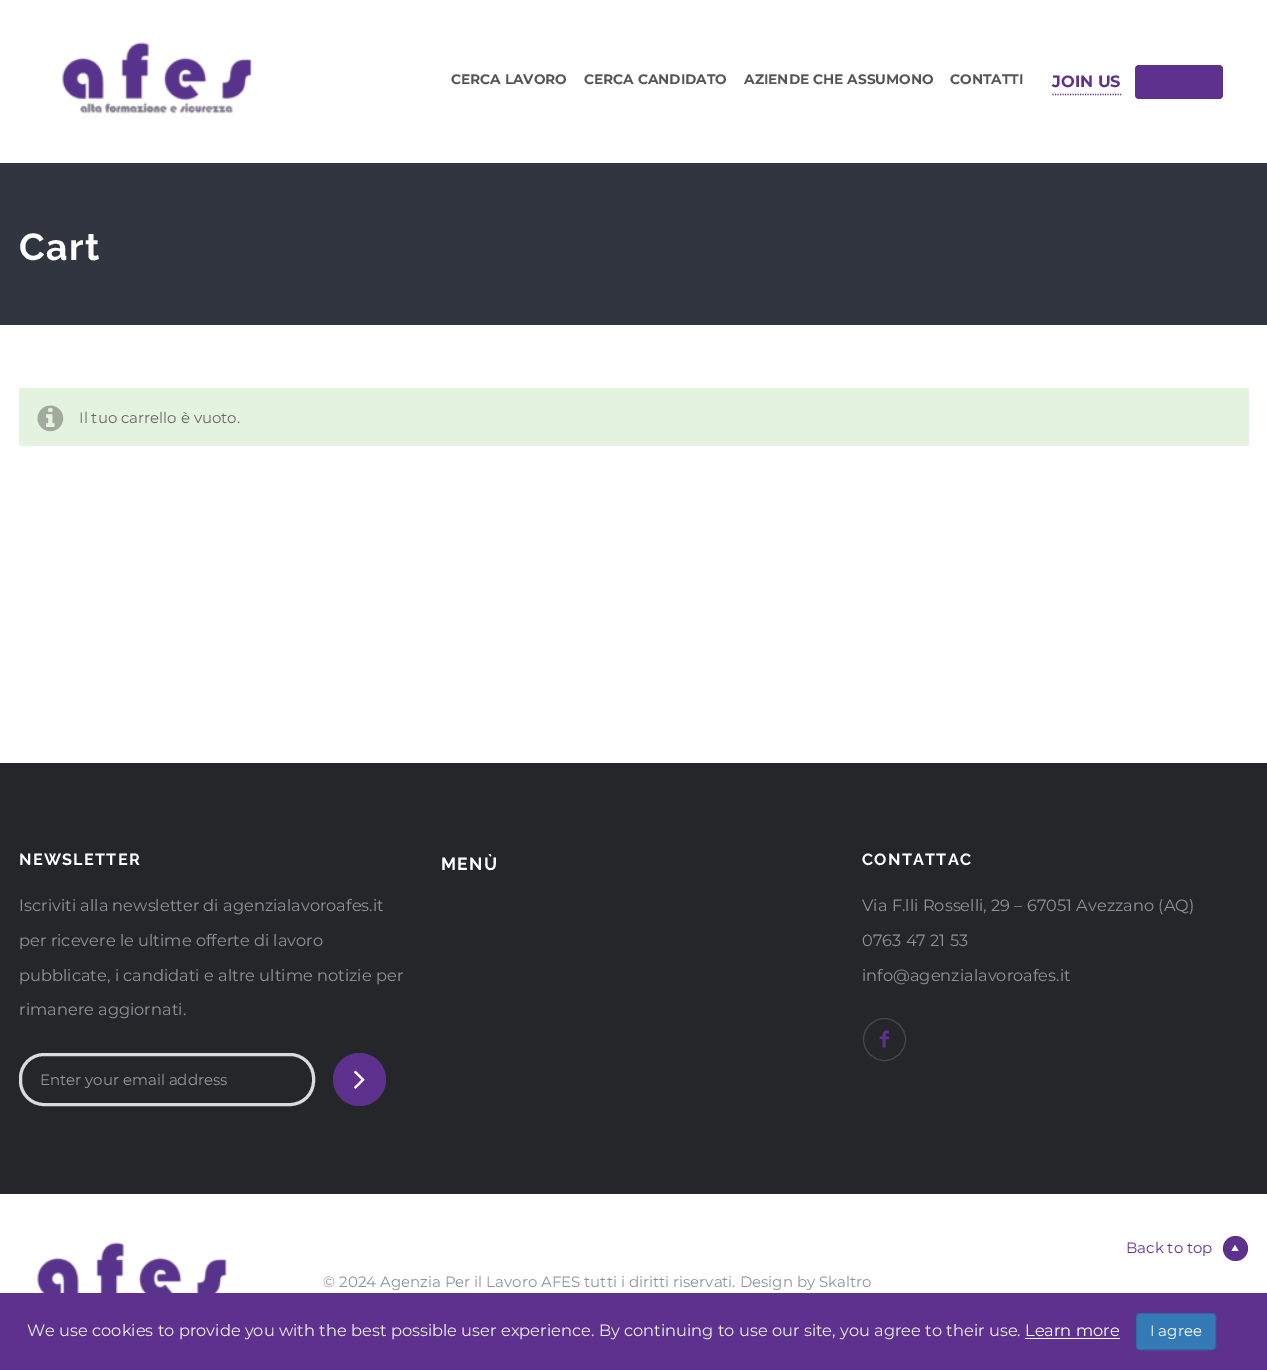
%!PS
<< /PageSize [1267 1370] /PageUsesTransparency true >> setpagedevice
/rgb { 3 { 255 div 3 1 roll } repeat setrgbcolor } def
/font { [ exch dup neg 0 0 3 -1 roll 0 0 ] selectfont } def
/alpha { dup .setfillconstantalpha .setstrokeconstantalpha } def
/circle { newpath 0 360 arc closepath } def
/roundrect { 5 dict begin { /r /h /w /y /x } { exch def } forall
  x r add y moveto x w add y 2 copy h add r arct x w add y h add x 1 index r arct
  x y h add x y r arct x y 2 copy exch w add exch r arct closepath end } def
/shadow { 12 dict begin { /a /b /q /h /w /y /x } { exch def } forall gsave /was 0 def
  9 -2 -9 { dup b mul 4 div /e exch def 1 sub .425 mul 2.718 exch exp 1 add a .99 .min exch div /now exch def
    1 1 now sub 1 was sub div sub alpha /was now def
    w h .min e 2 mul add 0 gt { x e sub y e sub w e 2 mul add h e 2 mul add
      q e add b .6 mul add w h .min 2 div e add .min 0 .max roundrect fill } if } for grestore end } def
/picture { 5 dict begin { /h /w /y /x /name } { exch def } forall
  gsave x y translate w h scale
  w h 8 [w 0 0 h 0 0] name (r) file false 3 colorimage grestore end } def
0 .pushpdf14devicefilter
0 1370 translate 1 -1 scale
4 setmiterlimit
255 255 255 rgb
0 0 1267 1370 rectfill
49 53 64 rgb
0 163 1267 162 rectfill
0 0 0 rgb
0 0 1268 163 0 2 0.1 shadow
255 255 255 rgb
0 0 1267 163 rectfill
(img/1.rgb) 62 42 190 72 picture
95 49 142 rgb
1.2 setlinewidth
[1.25 1.25] 0 setdash
1052.5 94.5 moveto 1121 94.5 lineto stroke
1135 65 88 34 4 roundrect fill
1138 98 83 1 rectfill
228 243 223 rgb
19 388 1230 58 rectfill
(img/2.rgb) 37 405 27 27 picture
37 38 42 rgb
0 763 1267 431 rectfill
219 219 219 rgb
3 setlinewidth
[] 0 setdash
20.5 1054.5 293 50 23.5 roundrect stroke
95 49 142 rgb
359.5 1079.5 26.5 circle fill
(img/3.rgb) 354 1070 11 19 picture
71 72 74 rgb
1 setlinewidth
884.5 1039.5 21 circle stroke
(img/4.rgb) 879 1030 11 18 picture
95 49 142 rgb
1235.5 1248.5 12.5 circle fill
255 255 255 rgb
1231.5 1251 moveto 1238.5 1251 lineto 1235 1245 lineto closepath fill
(img/5.rgb) 37 1242 190 51 picture
95 49 142 rgb
0 1293 1267 77 rectfill
255 255 255 rgb
1025 1338 95 1 rectfill
51 122 183 rgb
1136.5 1313.5 79 36 3.5 roundrect gsave fill grestore
46 109 164 rgb
stroke
/Montserrat-Bold 13.75 font
85 85 85 rgb
[
  [(CERCA LAVORO) 451 84]
  [(CERCA CANDIDATO) 584 84]
  [(AZIENDE CHE ASSUMONO) 744 84]
  [(CONTATTI) 950 84]
] { aload pop moveto show } forall
/Montserrat-Bold 16.25 font
95 49 142 rgb
1052 87 moveto (JOIN US) show
/Raleway-Bold 37.5 font
255 255 255 rgb
19 260 moveto 1.25 0 (Cart) ashow
/Montserrat-Regular 15 font
102 102 102 rgb
79 423 moveto (Il tuo carrello è vuoto.) show
/Raleway-Bold 16.25 font
255 255 255 rgb
19 865 moveto 1.25 0 (NEWSLETTER) ashow
/Montserrat-Regular 16.25 font
142 145 152 rgb
[
  [(Iscriviti alla newsletter di agenzialavoroafes.it) 19 911]
  [(per ricevere le ultime offerte di lavoro) 19 946]
  [(pubblicate, i candidati e altre ultime notizie per) 19 981]
  [(rimanere aggiornati.) 19 1015]
] { aload pop moveto show } forall
/Montserrat-Regular 15 font
153 153 153 rgb
40 1085 moveto (Enter your email address) show
/Raleway-Bold 17.5 font
255 255 255 rgb
441 870 moveto 1.25 0 (MENÙ) ashow
/Raleway-Bold 16.25 font
862 865 moveto 1.25 0 (CONTATTAC) ashow
/Montserrat-Regular 16.25 font
142 145 152 rgb
[
  [(Via F.lli Rosselli, 29 – 67051 Avezzano \(AQ\)) 862 911]
  [(0763 47 21 53) 862 946]
  [(info@agenzialavoroafes.it) 862 981]
] { aload pop moveto show } forall
/Montserrat-Regular 15 font
95 49 142 rgb
1126 1253 moveto (Back to top) show
142 145 152 rgb
323 1287 moveto (© 2024 Agenzia Per il Lavoro AFES tutti i diritti riservati. Design by Skaltro) show
/Montserrat-Regular 16.25 font
236 240 241 rgb
27 1336 moveto (We use cookies to provide you with the best possible user experience. By continuing to use our site, you agree to their use.) show
255 255 255 rgb
1025 1336 moveto (Learn more) show
/Montserrat-Regular 15 font
1150 1336 moveto (I agree) show
.poppdf14devicefilter showpage
